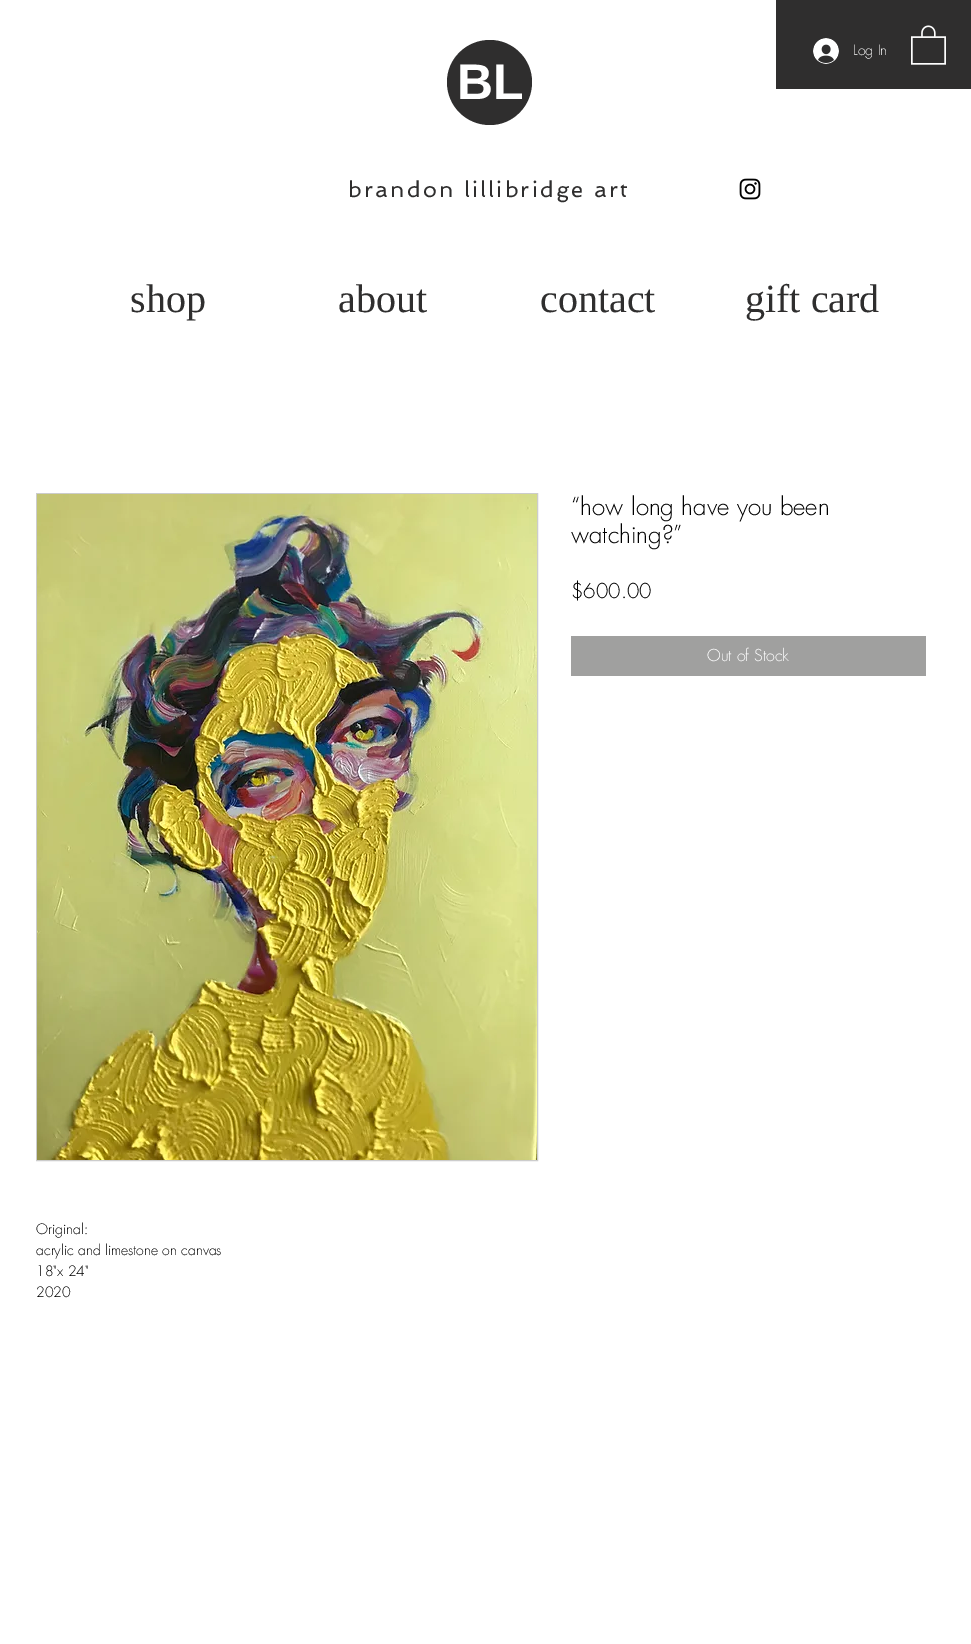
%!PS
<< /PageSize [971 1644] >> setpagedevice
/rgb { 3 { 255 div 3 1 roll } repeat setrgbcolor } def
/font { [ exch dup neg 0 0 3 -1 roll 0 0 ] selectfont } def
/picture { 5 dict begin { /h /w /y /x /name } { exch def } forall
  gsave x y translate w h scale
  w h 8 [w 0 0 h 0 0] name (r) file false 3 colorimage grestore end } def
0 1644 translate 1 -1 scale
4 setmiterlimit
255 255 255 rgb
0 0 971 1644 rectfill
47 46 46 rgb
776 0 195 89 rectfill
(img/1.rgb) 813 38 26 26 picture
(img/2.rgb) 911 25 35 40 picture
532 82 moveto 532 106 513 125 490 125 curveto 466 125 447 106 447 82 curveto 447 59 466 40 490 40 curveto 513 40 532 59 532 82 curveto closepath fill
(img/3.rgb) 739 178 22 22 picture
160 160 159 rgb
571 636 355 40 rectfill
204 204 204 rgb
36.5 493.5 501 667 rectstroke
(img/4.rgb) 37 494 500 666 picture
/futura-Light 14 font
255 255 255 rgb
853 55 moveto (Log In) show
/LiberationSans-Bold 50 font
457 99 moveto (BL) show
/Spinnaker-Regular 22 font
47 46 46 rgb
348 197 moveto 2.2 0 (brandon lillibridge art) ashow
/LiberationSerif-Regular 40 font
[
  [(shop) 130 312]
  [(about) 338 312]
  [(contact) 540 312]
  [(gift card) 745 312]
] { aload pop moveto show } forall
/futura-Light 24 font
0 0 0 rgb
571 515 moveto (“how long have you been) show
571 543 moveto (watching?”) show
/futura-Light 20 font
571 598 moveto ($600.00) show
/futura-Light 16 font
255 255 255 rgb
707 661 moveto (Out of Stock) show
/futura-Light 14 font
0 0 0 rgb
[
  [(Original:) 36 1234]
  [(acrylic and limestone on canvas) 36 1255]
  [(18"x 24") 36 1276]
  [(2020) 36 1297]
] { aload pop moveto show } forall
showpage
